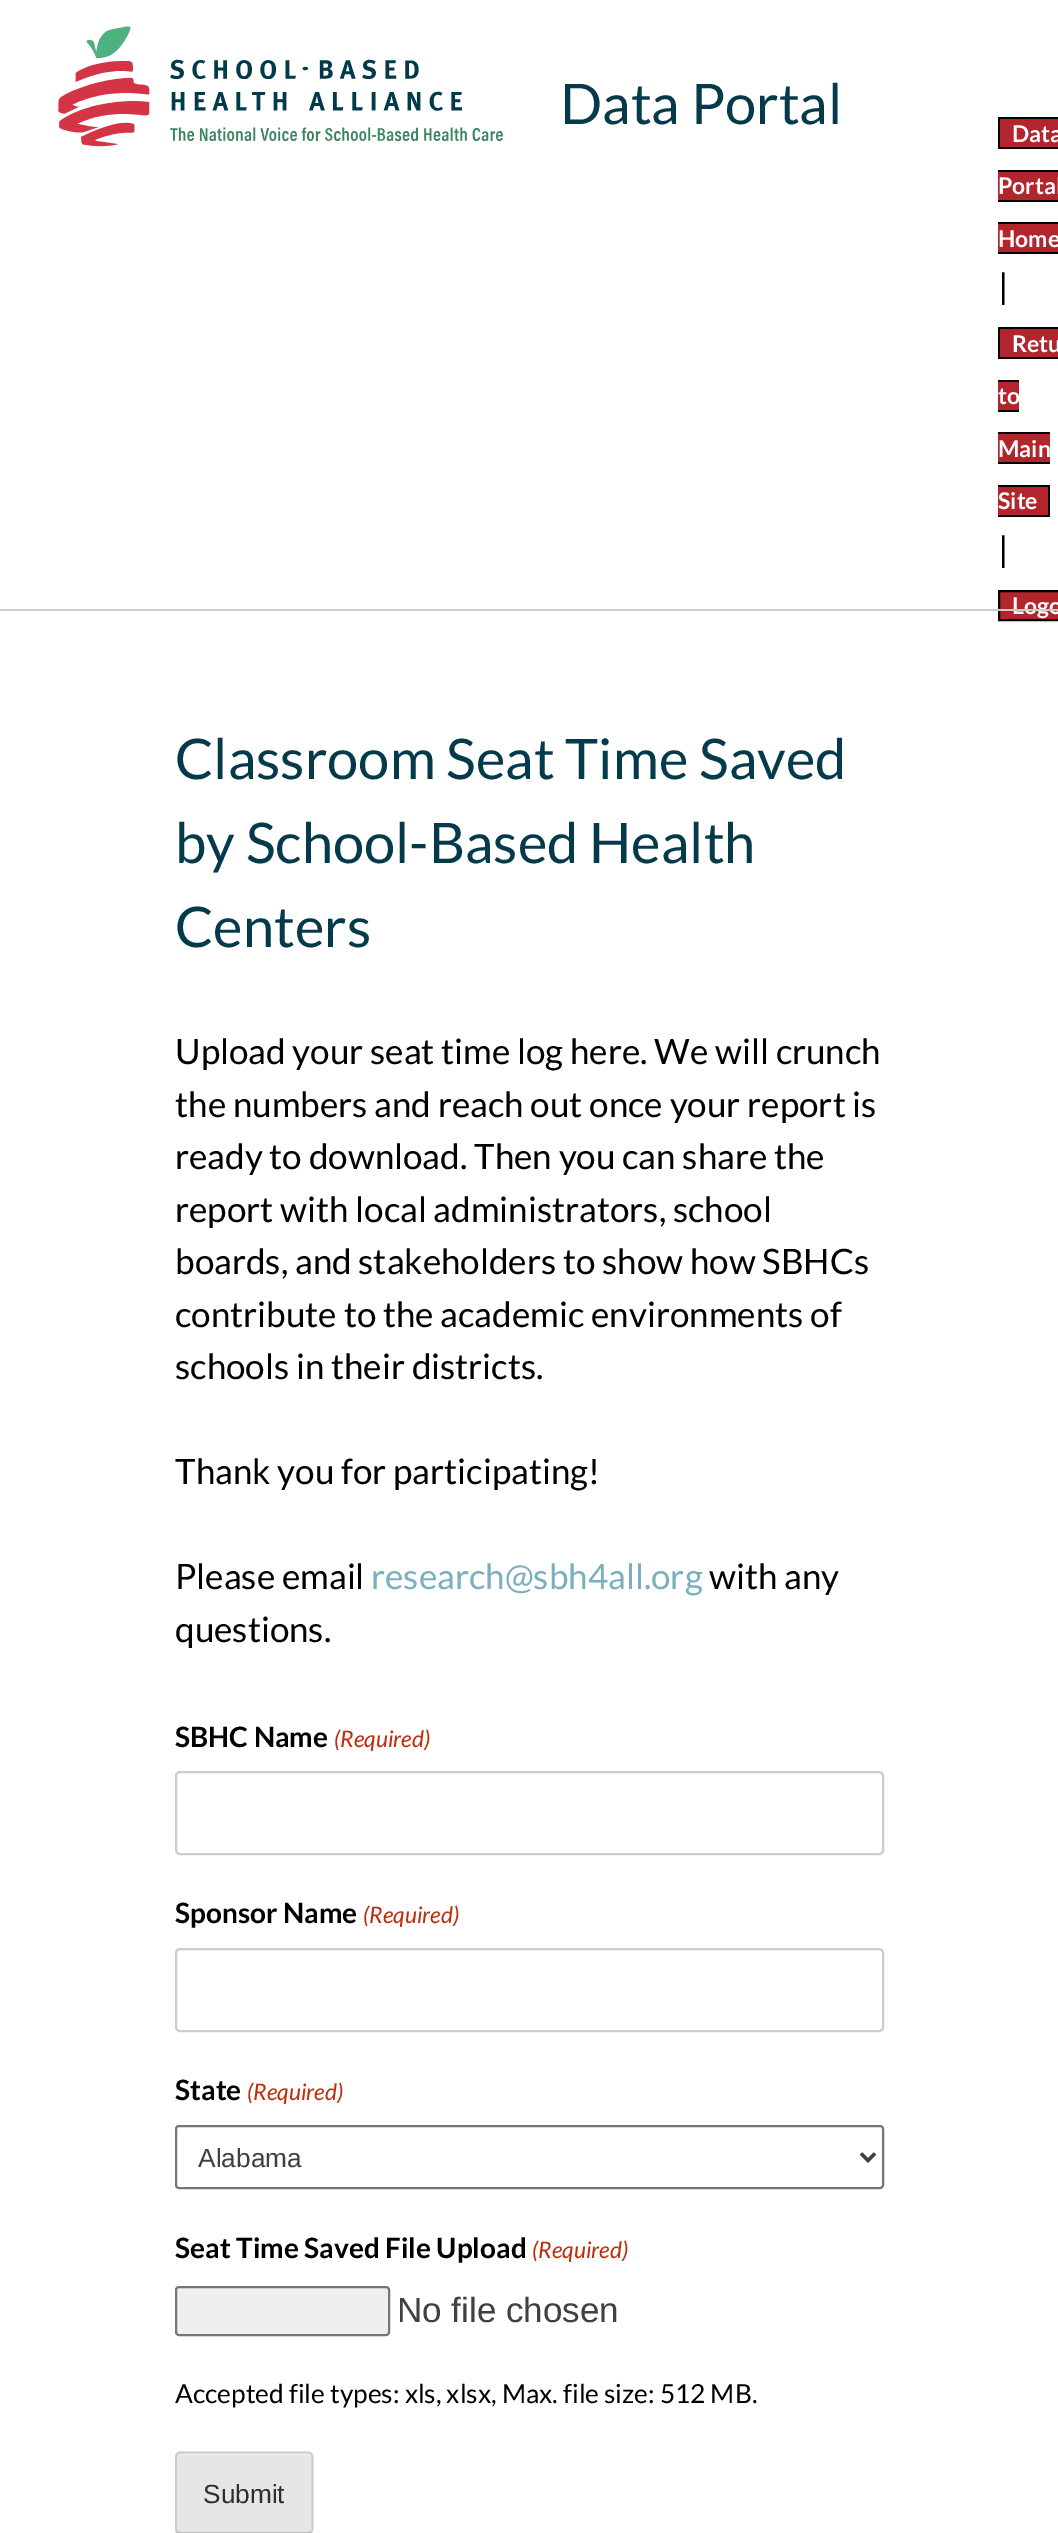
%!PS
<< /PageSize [1058 2533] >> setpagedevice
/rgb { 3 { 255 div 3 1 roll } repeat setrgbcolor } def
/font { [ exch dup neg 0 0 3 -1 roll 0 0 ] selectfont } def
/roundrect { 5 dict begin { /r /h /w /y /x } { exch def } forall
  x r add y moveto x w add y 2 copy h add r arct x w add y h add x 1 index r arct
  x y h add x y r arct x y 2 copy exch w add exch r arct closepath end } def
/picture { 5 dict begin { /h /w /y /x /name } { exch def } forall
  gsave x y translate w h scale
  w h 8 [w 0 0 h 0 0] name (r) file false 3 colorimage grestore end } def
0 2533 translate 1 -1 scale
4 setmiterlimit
255 255 255 rgb
0 0 1058 2533 rectfill
(img/1.rgb) 58 26 445 121 picture
[
  [1000 119 58 28 178 37 44]
  [998 117 60 2 0 0 0]
  [998 147 60 2 0 0 0]
  [998 117 2 32 0 0 0]
  [998 172 60 28 178 37 44]
  [998 170 60 2 0 0 0]
  [998 200 60 2 0 0 0]
  [998 224 60 28 178 37 44]
  [998 222 60 2 0 0 0]
  [998 252 60 2 0 0 0]
  [1000 329 58 28 178 37 44]
  [998 327 60 2 0 0 0]
  [998 357 60 2 0 0 0]
  [998 327 2 32 0 0 0]
  [998 382 21 28 178 37 44]
  [998 380 21 2 0 0 0]
  [998 410 21 2 0 0 0]
  [998 434 52 28 178 37 44]
  [998 432 52 2 0 0 0]
  [998 462 52 2 0 0 0]
  [998 487 50 28 178 37 44]
  [998 485 52 2 0 0 0]
  [1048 485 2 31 0 0 0]
  [998 515 52 2 0 0 0]
] { aload pop rgb rectfill } forall
178 37 44 rgb
999 591 moveto 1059 591 lineto 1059 620 lineto 999 620 lineto closepath gsave fill grestore
0 0 0 rgb
2 setlinewidth
stroke
204 204 204 rgb
176 1772 707 82 4 roundrect stroke
176 1949 707 82 4 roundrect stroke
118 118 118 rgb
176 2126 707 62 3 roundrect stroke
64 64 64 rgb
3.5 setlinewidth
861 2153.5 moveto 868 2160.5 lineto 875 2153.5 lineto stroke
239 239 239 rgb
176 2287 213 48 3 roundrect gsave fill grestore
118 118 118 rgb
2 setlinewidth
stroke
230 230 230 rgb
175 2452 138 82 5 roundrect fill
243 243 243 rgb
180 2455 moveto 308 2455 lineto 310 2455 312 2457 312 2459 curveto 312 2458 lineto 312 2456 310 2454 308 2454 curveto 181 2454 lineto 179 2454 177 2456 177 2458 curveto 177 2459 lineto 177 2457 178 2455 180 2455 curveto closepath fill
187 187 187 rgb
1.8 setlinewidth
311 2532 moveto 308.5 2533 lineto 201.5 2533 lineto 180 2533 lineto 177 2532 lineto stroke
204 204 204 rgb
177 2532 moveto 176.5 2531 176 2530 176 2529 curveto 176 2457 lineto 176 2456 176.5 2454.5 177 2454 curveto 178 2453 179 2452.5 180 2452.5 curveto 308 2452.5 lineto 309 2452.5 310.5 2453 311 2454 curveto 312 2454.5 312.5 2456 312.5 2457 curveto 312.5 2529 lineto 312.5 2530 312 2531 311 2532 curveto stroke
/Lato-Regular 56 font
5 58 75 rgb
560 124 moveto (Data Portal) show
/Lato-Bold 23 font
255 255 255 rgb
[
  [(Data) 1012 142]
  [(Portal) 998 194]
  [(Home) 998 247]
] { aload pop moveto show } forall
/Lato-Regular 35 font
0 0 0 rgb
998 299 moveto (|) show
/Lato-Bold 23 font
255 255 255 rgb
[
  [(Retu) 1012 352]
  [(to) 998 404]
  [(Main) 998 457]
  [(Site) 998 509]
] { aload pop moveto show } forall
/Lato-Regular 35 font
0 0 0 rgb
998 562 moveto (|) show
/Lato-Bold 23 font
255 255 255 rgb
1012 614 moveto (Logo) show
204 204 204 rgb
0 609 1058 2 rectfill
/Lato-Regular 56 font
5 58 75 rgb
[
  [(Classroom Seat Time Saved) 175 779]
  [(by School-Based Health) 175 863]
  [(Centers) 175 947]
] { aload pop moveto show } forall
/Lato-Regular 35 font
0 0 0 rgb
[
  [(Upload your seat time log here. We will crunch) 175 1064]
  [(the numbers and reach out once your report is) 175 1117]
  [(ready to download. Then you can share the) 175 1169]
  [(report with local administrators, school) 175 1222]
  [(boards, and stakeholders to show how SBHCs) 175 1274]
  [(contribute to the academic environments of) 175 1327]
  [(schools in their districts.) 175 1379]
  [(Thank you for participating!) 175 1484]
  [(Please email) 175 1589]
] { aload pop moveto show } forall
122 175 189 rgb
371 1589 moveto (research@sbh4all.org) show
0 0 0 rgb
709 1589 moveto (with any) show
175 1642 moveto (questions.) show
/Lato-Bold 28 font
175 1747 moveto (SBHC Name) show
/Lato-Italic 22.75 font
192 43 10 rgb
334 1747 moveto (\(Required\)) show
/Lato-Bold 28 font
0 0 0 rgb
175 1923 moveto (Sponsor Name) show
/Lato-Italic 22.75 font
192 43 10 rgb
363 1923 moveto (\(Required\)) show
/Lato-Bold 28 font
0 0 0 rgb
175 2100 moveto (State) show
/Lato-Italic 22.75 font
192 43 10 rgb
247 2100 moveto (\(Required\)) show
/LiberationSans-Regular 26.25 font
64 64 64 rgb
198 2167 moveto (Alabama) show
/Lato-Bold 28 font
0 0 0 rgb
175 2258 moveto (Seat Time Saved File Upload) show
/Lato-Italic 22.75 font
192 43 10 rgb
532 2258 moveto (\(Required\)) show
/LiberationSans-Regular 35 font
64 64 64 rgb
397 2322 moveto (No file chosen) show
/Lato-Regular 26.25 font
0 0 0 rgb
175 2403 moveto (Accepted file types: xls, xlsx, Max. file size: 512 MB.) show
/LiberationSans-Regular 26.25 font
46 46 46 rgb
203 2503 moveto (Submit) show
showpage
